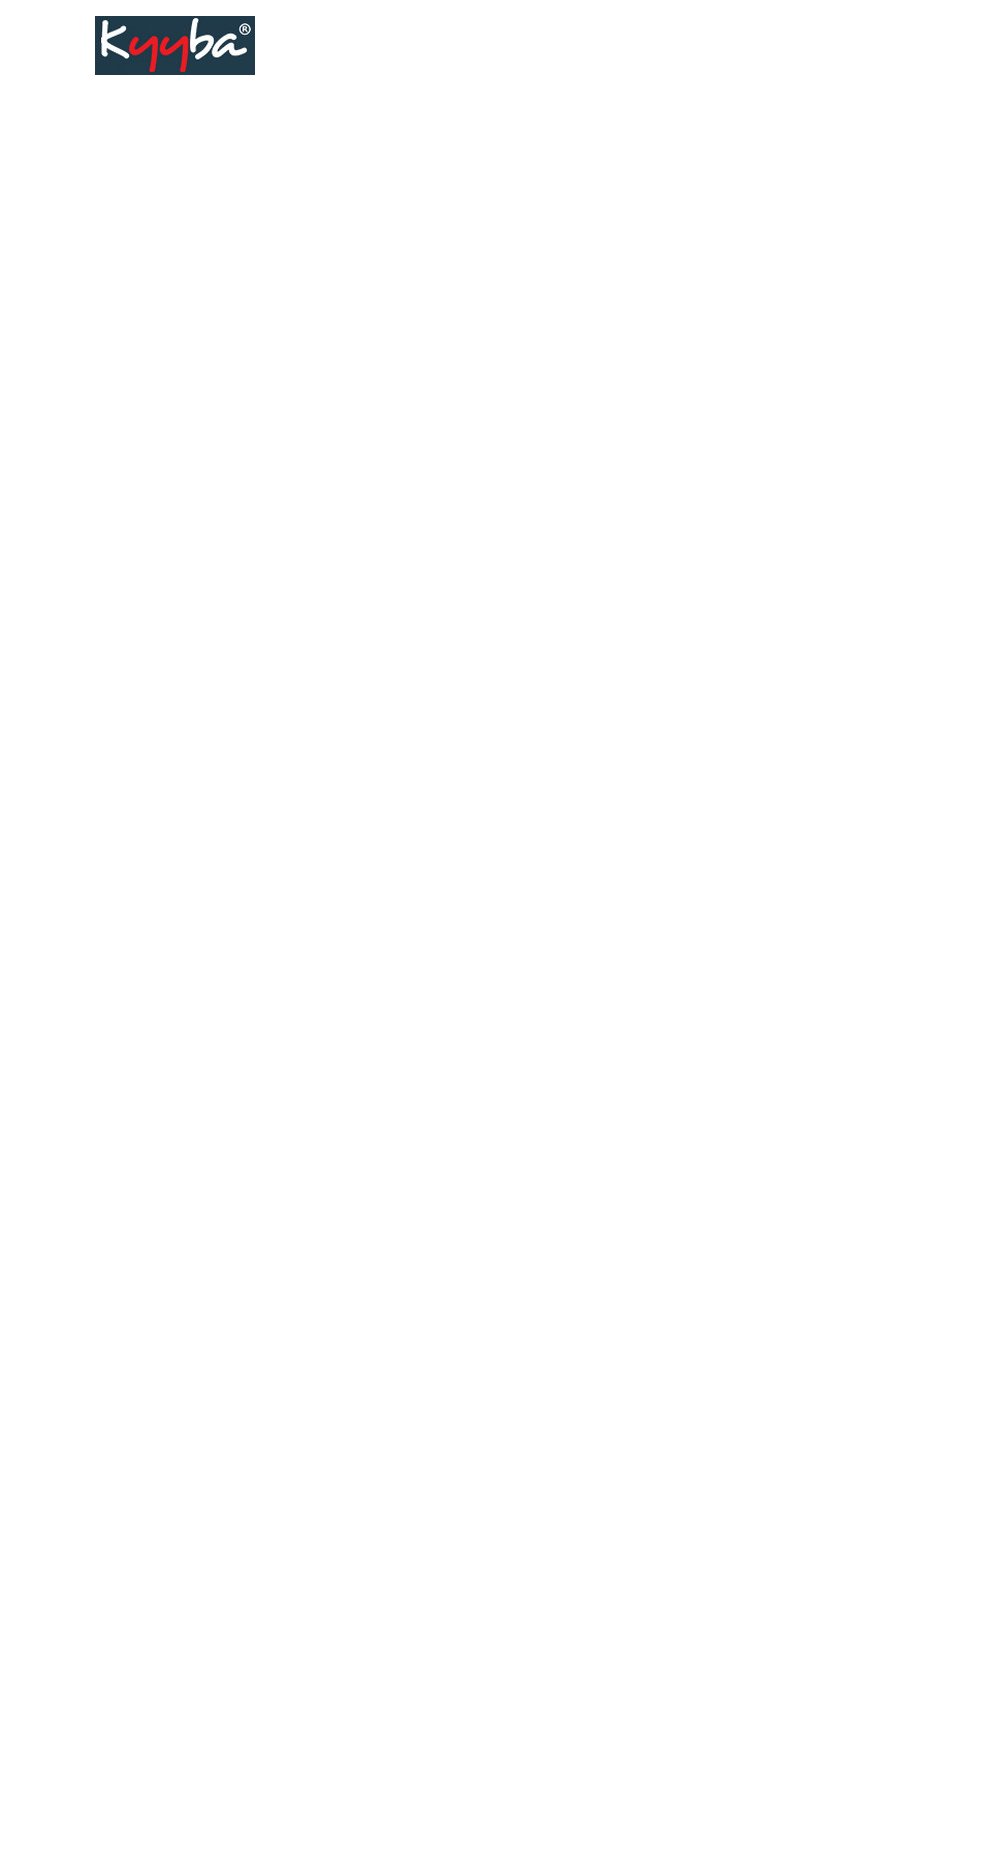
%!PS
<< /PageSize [990 1854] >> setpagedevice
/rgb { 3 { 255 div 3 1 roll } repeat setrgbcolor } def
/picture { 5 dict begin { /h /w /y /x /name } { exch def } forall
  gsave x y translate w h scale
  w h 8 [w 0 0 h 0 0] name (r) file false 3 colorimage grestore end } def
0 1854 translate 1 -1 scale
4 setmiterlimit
255 255 255 rgb
0 0 990 1854 rectfill
(img/1.rgb) 95 16 160 59 picture
showpage
